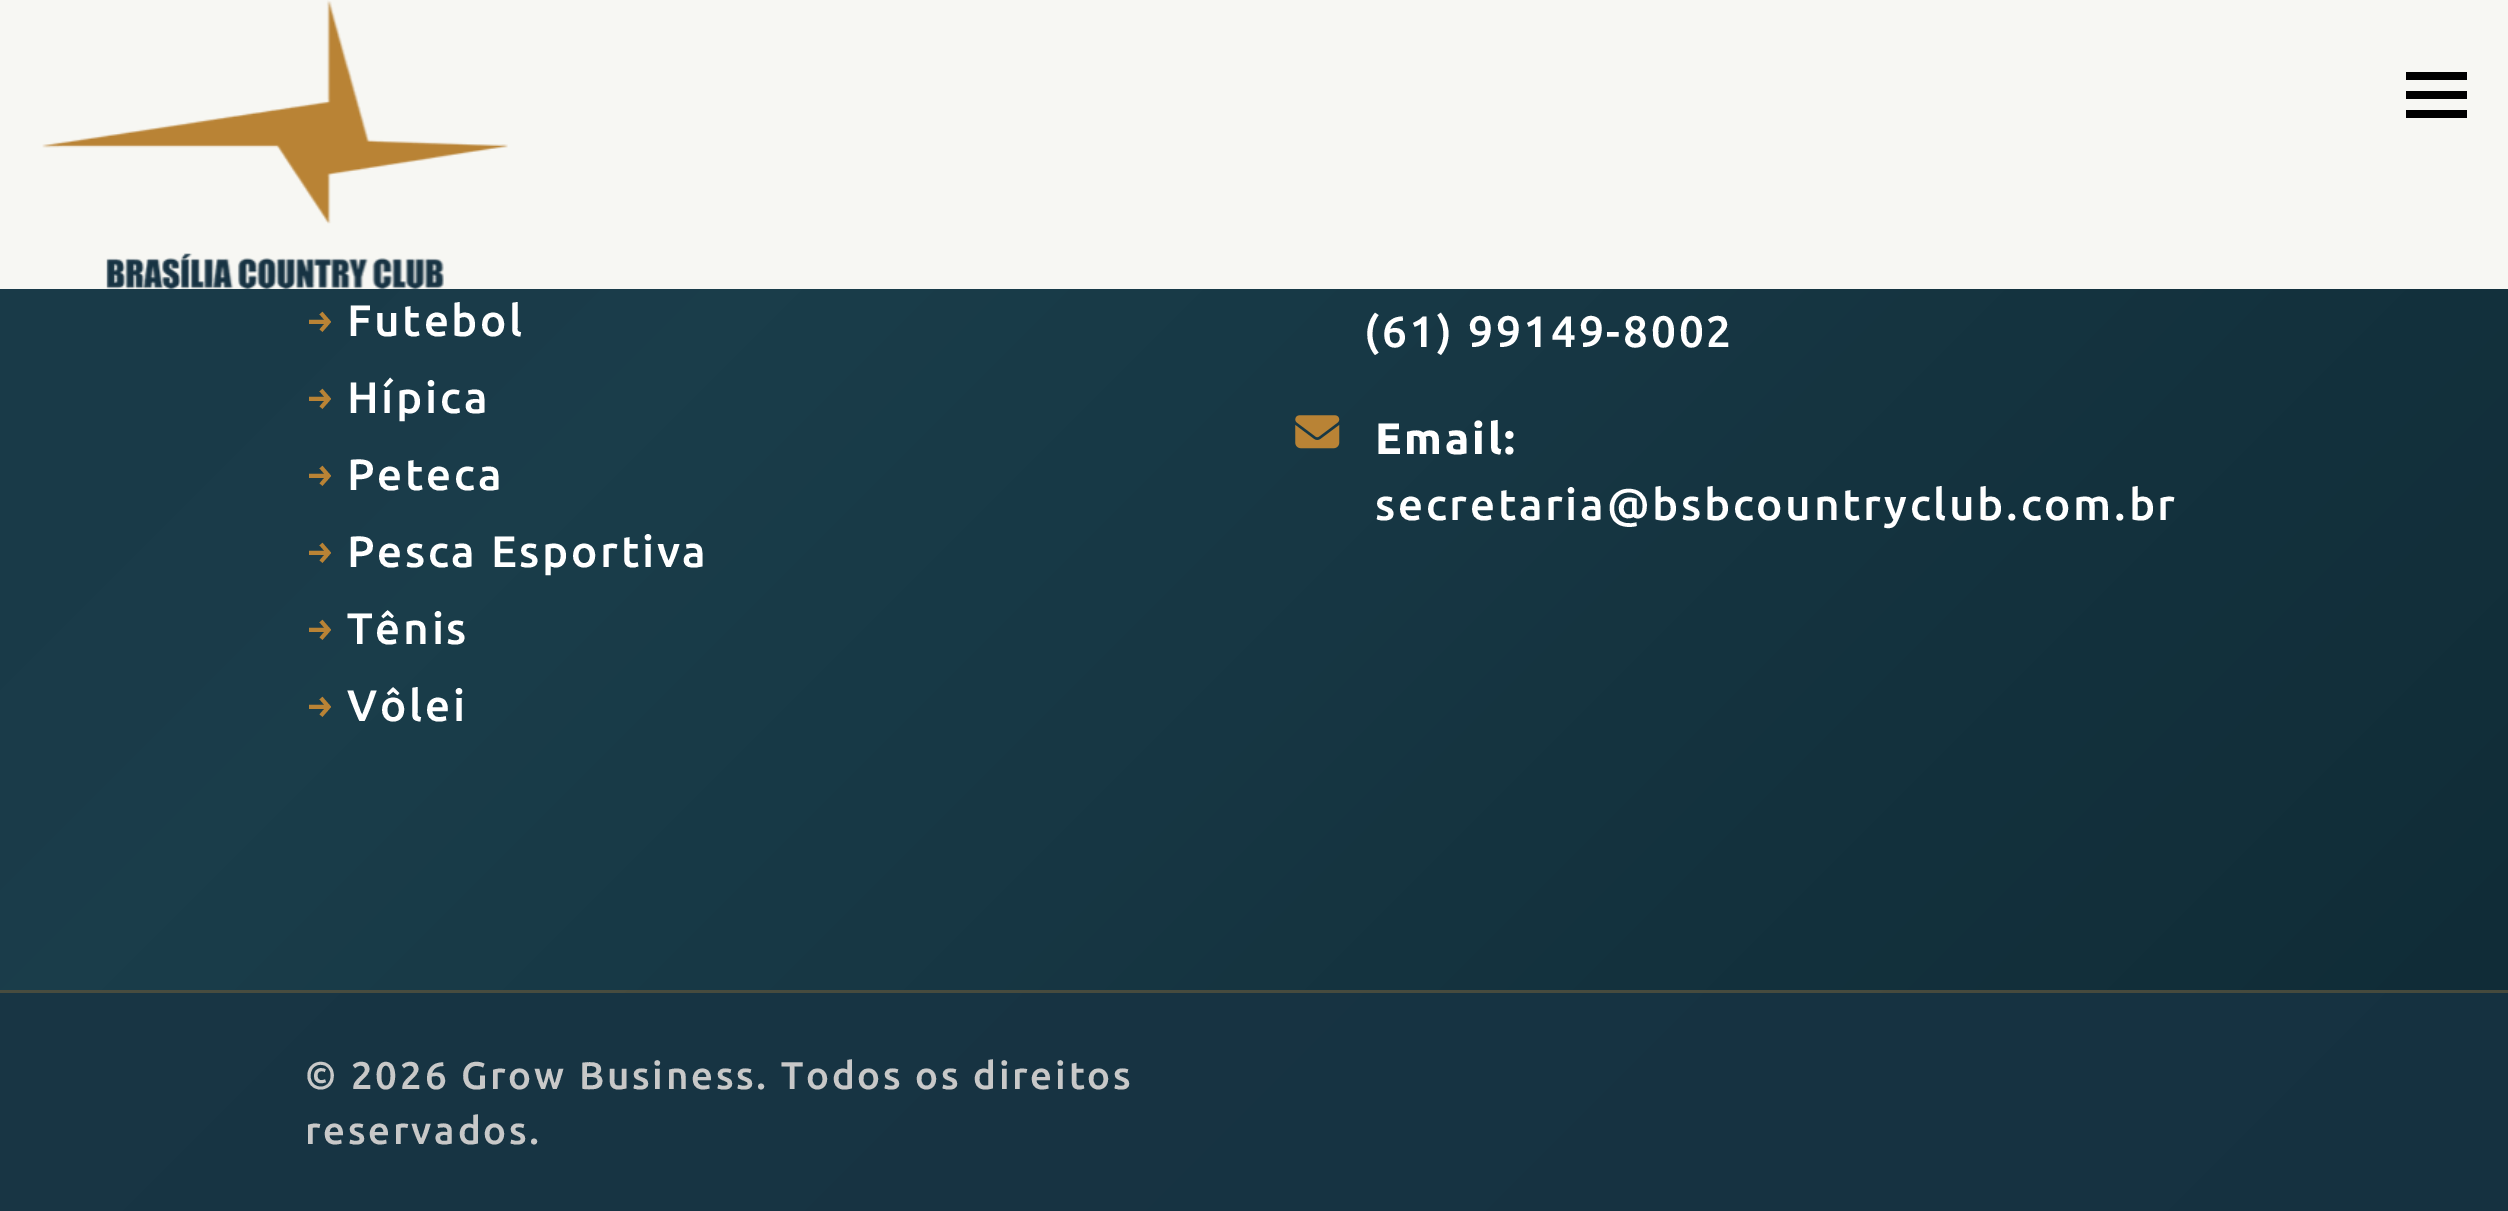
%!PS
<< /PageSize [2508 1211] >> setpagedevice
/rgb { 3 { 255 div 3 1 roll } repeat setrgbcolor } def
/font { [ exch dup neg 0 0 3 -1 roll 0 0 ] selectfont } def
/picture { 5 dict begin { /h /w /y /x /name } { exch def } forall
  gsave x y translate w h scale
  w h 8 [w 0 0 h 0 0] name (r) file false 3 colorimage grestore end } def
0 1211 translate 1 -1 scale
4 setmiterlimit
255 255 255 rgb
0 0 2508 1211 rectfill
247 247 243 rgb
0 0 2508 289 rectfill
(img/1.rgb) 42 0 466 289 picture
[
  [2406 72 61 8 0 0 0]
  [2406 91 61 8 0 0 0]
  [2406 110 61 8 0 0 0]
] { aload pop rgb rectfill } forall
gsave 0 289 moveto 2508 289 lineto 2508 990 lineto 0 990 lineto closepath clip newpath
<< /ShadingType 2 /ColorSpace /DeviceRGB /Coords [-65 -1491 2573 1147] /Extend [true true] /Function << /FunctionType 3 /Domain [0 1] /Functions [<< /FunctionType 2 /Domain [0 1] /C0 [0.09 0.2 0.263] /C1 [0.102 0.239 0.29] /N 1 >> << /FunctionType 2 /Domain [0 1] /C0 [0.102 0.239 0.29] /C1 [0.059 0.165 0.208] /N 1 >>] /Bounds [0.5] /Encode [0 1 0 1] >> >> shfill grestore
gsave 0 993 moveto 2508 993 lineto 2508 1211 lineto 0 1211 lineto closepath clip newpath
<< /ShadingType 2 /ColorSpace /DeviceRGB /Coords [-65 -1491 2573 1147] /Extend [true true] /Function << /FunctionType 3 /Domain [0 1] /Functions [<< /FunctionType 2 /Domain [0 1] /C0 [0.09 0.2 0.263] /C1 [0.094 0.208 0.267] /N 1 >> << /FunctionType 2 /Domain [0 1] /C0 [0.094 0.208 0.267] /C1 [0.082 0.192 0.251] /N 1 >>] /Bounds [0.5] /Encode [0 1 0 1] >> >> shfill grestore
gsave 0 990 moveto 2508 990 lineto 2508 993 lineto 0 993 lineto closepath clip newpath
<< /ShadingType 2 /ColorSpace /DeviceRGB /Coords [-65 -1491 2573 1147] /Extend [true true] /Function << /FunctionType 3 /Domain [0 1] /Functions [<< /FunctionType 2 /Domain [0 1] /C0 [0.282 0.294 0.247] /C1 [0.282 0.298 0.247] /N 1 >> << /FunctionType 2 /Domain [0 1] /C0 [0.282 0.298 0.247] /C1 [0.275 0.29 0.239] /N 1 >>] /Bounds [0.5] /Encode [0 1 0 1] >> >> shfill grestore
(img/2.rgb) 1295 415 45 34 picture
/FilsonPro-Medium 44 font
185 131 53 rgb
305 333 moveto 2.75 0 (→) ashow
/Ubuntu-Medium 44 font
255 255 255 rgb
347 336 moveto 2.75 0 (Futebol) ashow
/FilsonPro-Medium 44 font
185 131 53 rgb
305 410 moveto 2.75 0 (→) ashow
/Ubuntu-Medium 44 font
255 255 255 rgb
347 413 moveto 2.75 0 (Hípica) ashow
/FilsonPro-Medium 44 font
185 131 53 rgb
305 487 moveto 2.75 0 (→) ashow
/Ubuntu-Medium 44 font
255 255 255 rgb
347 490 moveto 2.75 0 (Peteca) ashow
/FilsonPro-Medium 44 font
185 131 53 rgb
305 564 moveto 2.75 0 (→) ashow
/Ubuntu-Medium 44 font
255 255 255 rgb
347 567 moveto 2.75 0 (Pesca Esportiva) ashow
/FilsonPro-Medium 44 font
185 131 53 rgb
305 641 moveto 2.75 0 (→) ashow
/Ubuntu-Medium 44 font
255 255 255 rgb
347 644 moveto 2.75 0 (Tênis) ashow
/FilsonPro-Medium 44 font
185 131 53 rgb
305 718 moveto 2.75 0 (→) ashow
/Ubuntu-Medium 44 font
255 255 255 rgb
347 721 moveto 2.75 0 (Vôlei) ashow
1364 347 moveto 2.75 0 (\(61\) 99149-8002) ashow
/Ubuntu-Bold 44 font
1375 454 moveto 2.75 0 (Email:) ashow
/Ubuntu-Medium 44 font
1375 520 moveto 2.75 0 (secretaria@bsbcountryclub.com.br) ashow
/Ubuntu-Medium 38.5 font
200 200 200 rgb
305 1089 moveto 2.75 0 (© 2026 Grow Business. Todos os direitos) ashow
305 1144 moveto 2.75 0 (reservados.) ashow
showpage
